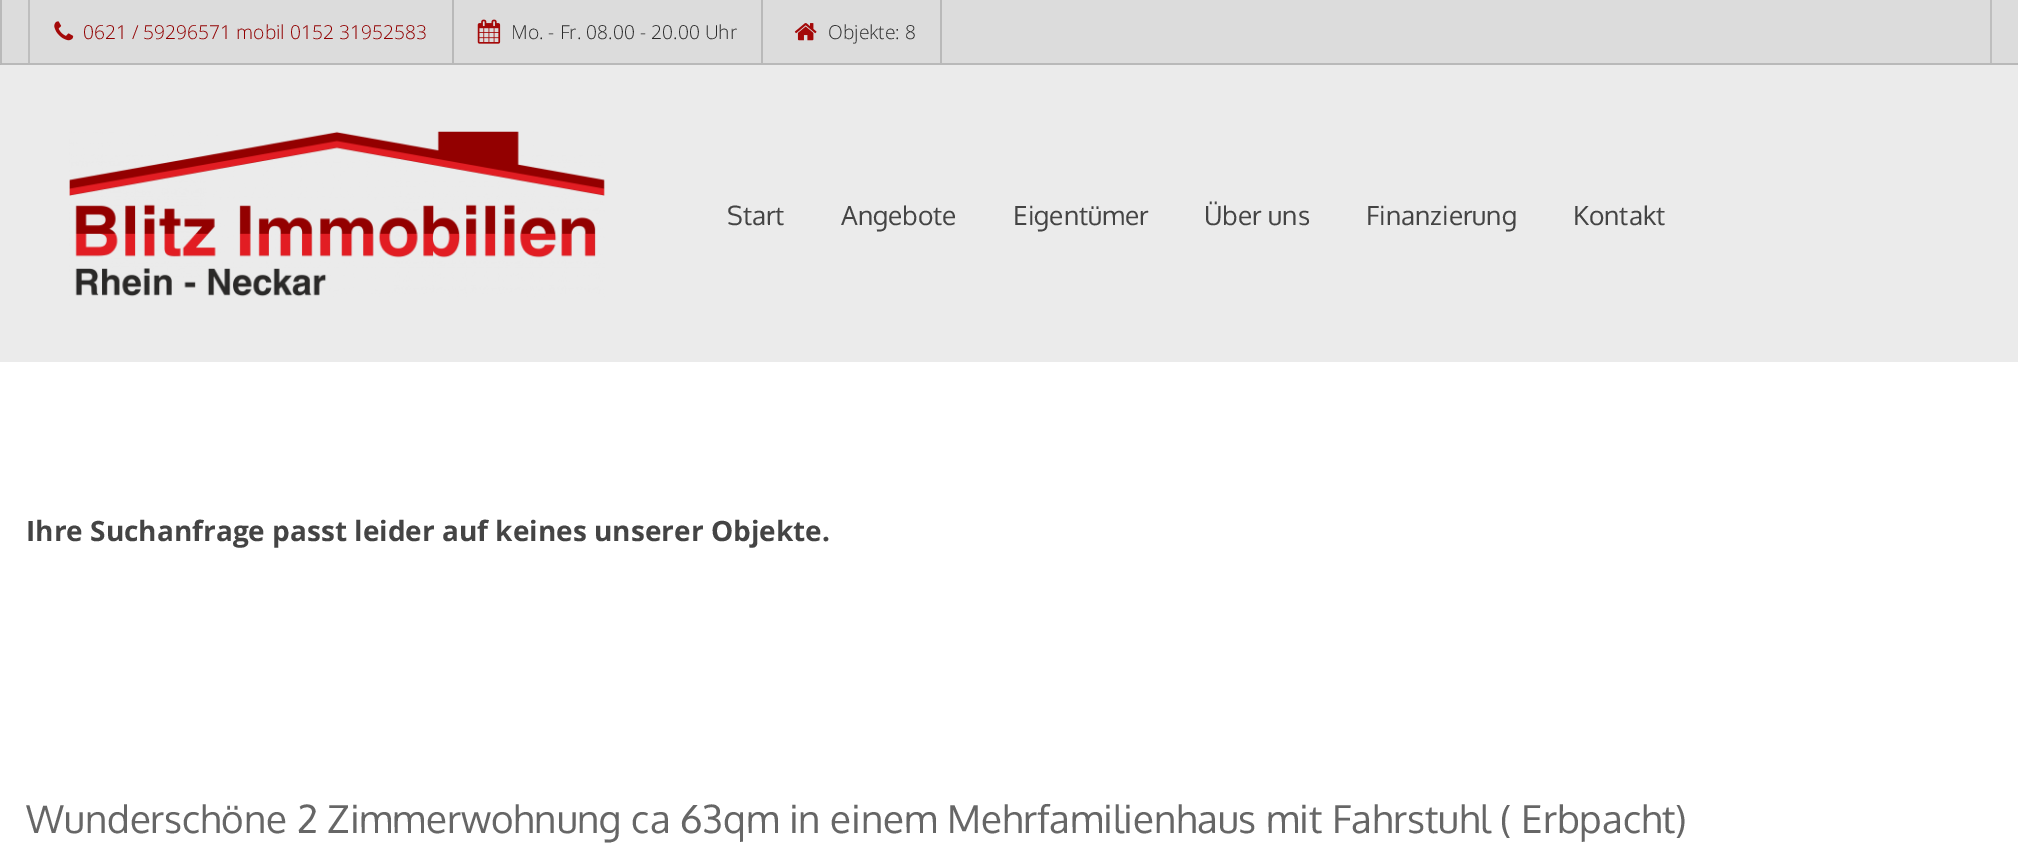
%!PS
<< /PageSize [2018 867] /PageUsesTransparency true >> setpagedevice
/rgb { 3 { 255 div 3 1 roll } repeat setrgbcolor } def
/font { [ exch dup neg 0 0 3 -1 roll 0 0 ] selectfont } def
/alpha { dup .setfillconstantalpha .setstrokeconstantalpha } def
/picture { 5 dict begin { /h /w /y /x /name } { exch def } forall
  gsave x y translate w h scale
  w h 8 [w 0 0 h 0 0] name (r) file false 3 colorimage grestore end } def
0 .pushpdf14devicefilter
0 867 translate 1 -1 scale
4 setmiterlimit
255 255 255 rgb
0 0 2018 867 rectfill
220 220 220 rgb
0 0 2018 65 rectfill
185 185 185 rgb
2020 65 moveto 0 65 lineto 2 63 lineto 2018 63 lineto closepath fill
0.2 alpha
43 43 43 rgb
0 65 moveto 0 0 lineto 2 0 lineto 2 63 lineto closepath fill
1 alpha
[
  [1990 0 2 63 190 190 190]
  [28 0 2 63 190 190 190]
  [452 0 2 63 185 185 185]
] { aload pop rgb rectfill } forall
(img/1.rgb) 54 21 20 20 picture
761 0 2 63 rectfill
(img/2.rgb) 477 19 24 25 picture
940 0 2 63 rectfill
(img/3.rgb) 794 23 23 18 picture
235 235 235 rgb
0 65 2018 297 rectfill
(img/4.rgb) 69 131 536 166 picture
/OpenSans-Light 19.25 font
145 0 0 rgb
83 39 moveto (0621 / 59296571 mobil 0152 31952583) show
43 43 43 rgb
511 39 moveto (Mo. - Fr. 08.00 - 20.00 Uhr) show
828 39 moveto (Objekte: 8) show
/Oxygen-Regular 26.25 font
68 68 68 rgb
[
  [(Start) 727 225]
  [(Angebote) 841 225]
  [(Eigentümer) 1013 225]
  [(Über uns) 1204 225]
  [(Finanzierung) 1366 225]
  [(Kontakt) 1573 225]
] { aload pop moveto show } forall
/OpenSans-Bold 28 font
26 541 moveto (Ihre Suchanfrage passt leider auf keines unserer Objekte.) show
/Oxygen-Regular 38.5 font
102 102 102 rgb
26 833 moveto (Wunderschöne 2 Zimmerwohnung ca 63qm in einem Mehrfamilienhaus mit Fahrstuhl \( Erbpacht\)) show
.poppdf14devicefilter showpage
